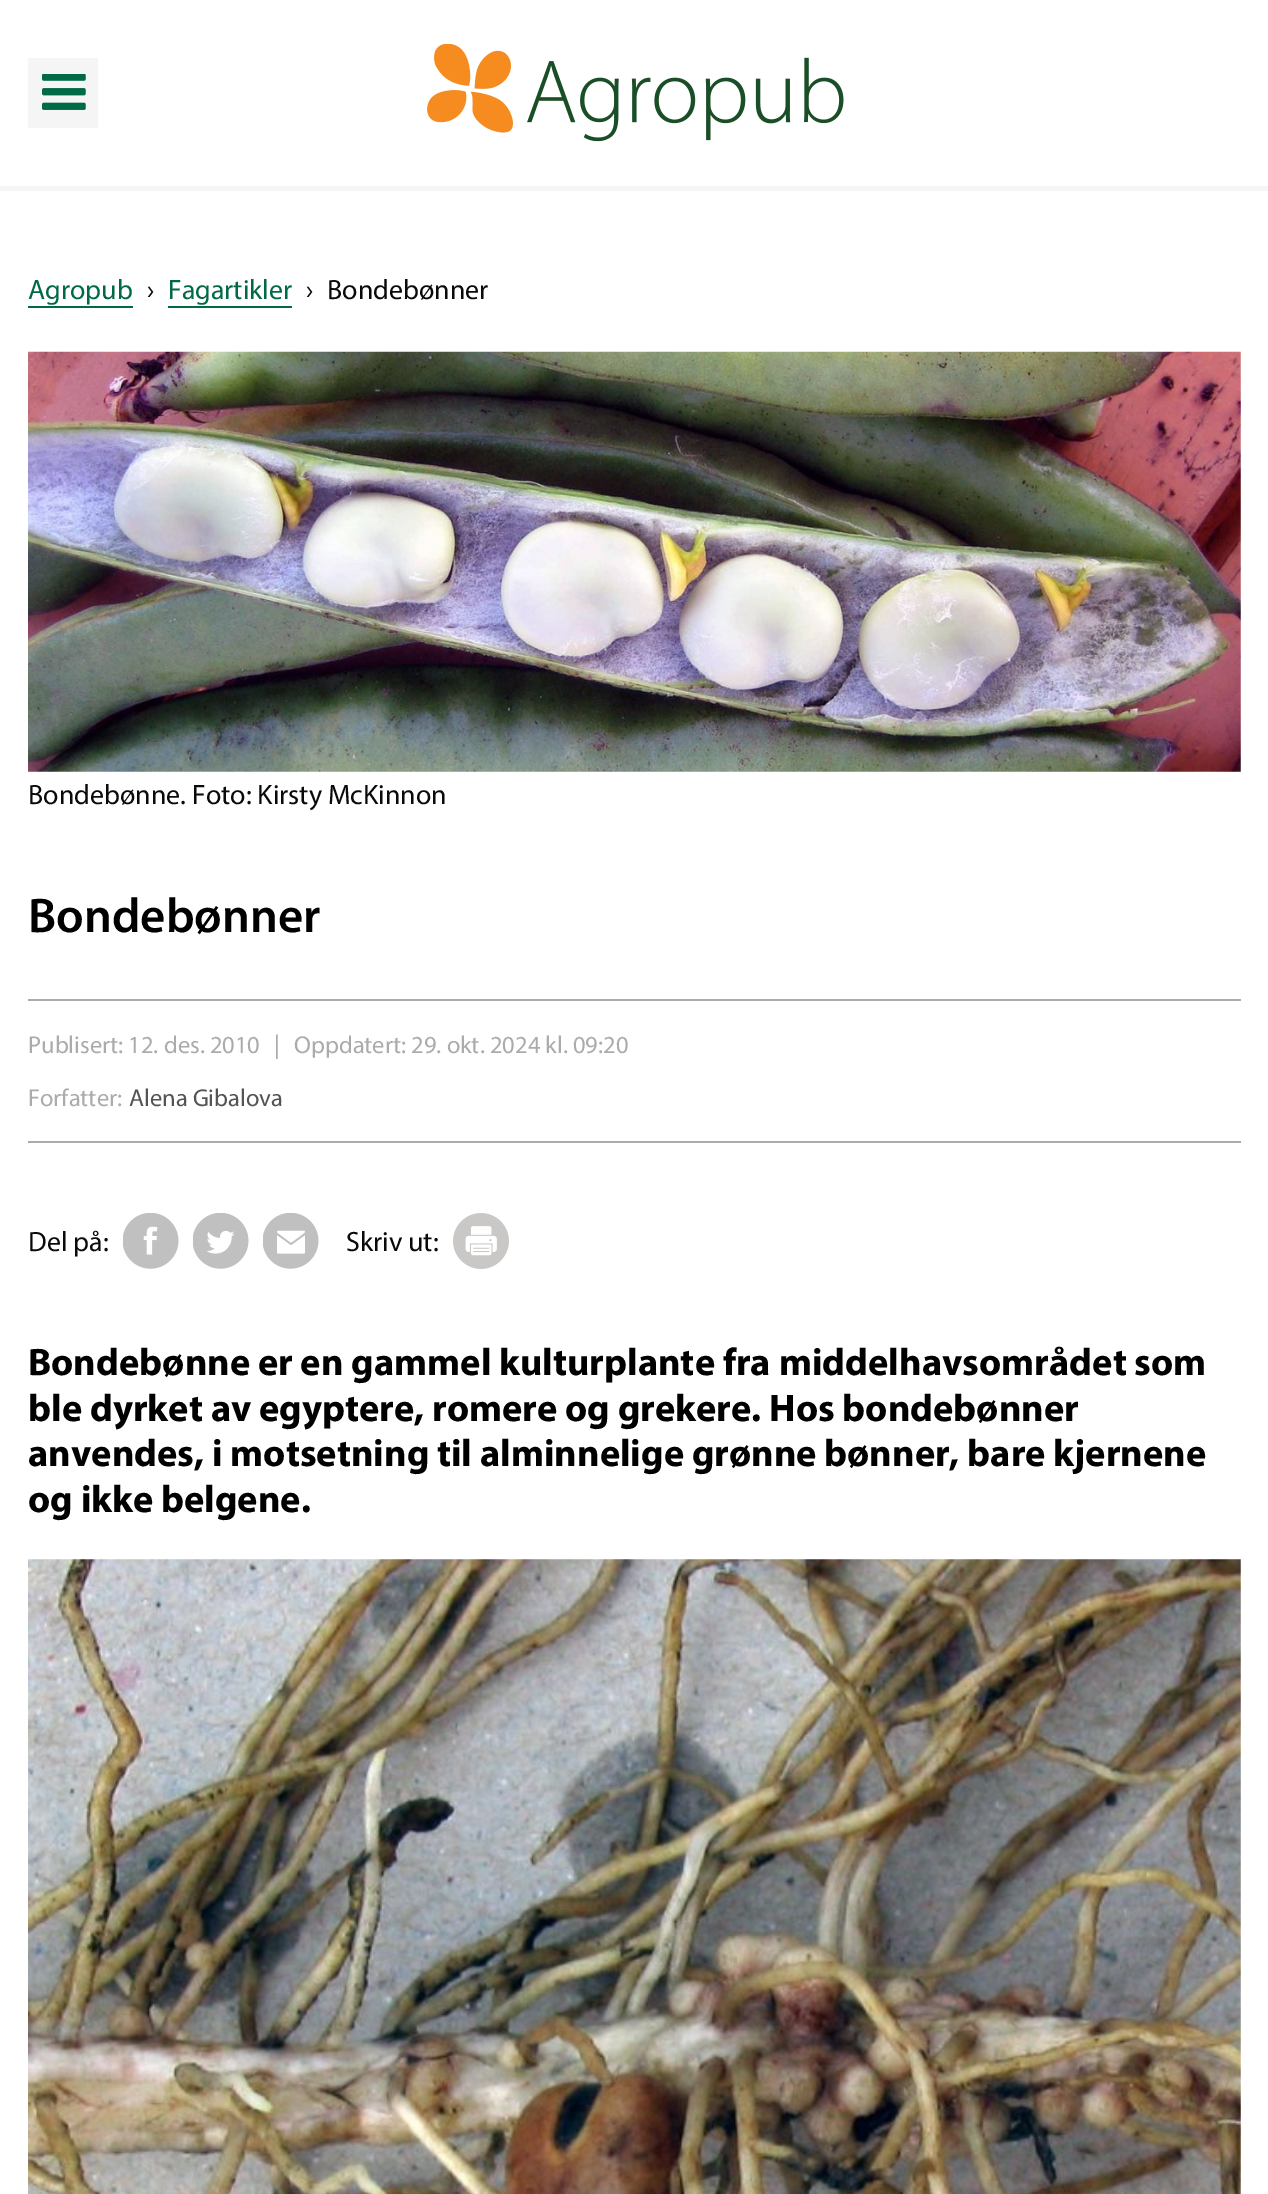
%!PS
<< /PageSize [1268 2194] >> setpagedevice
/rgb { 3 { 255 div 3 1 roll } repeat setrgbcolor } def
/font { [ exch dup neg 0 0 3 -1 roll 0 0 ] selectfont } def
/picture { 5 dict begin { /h /w /y /x /name } { exch def } forall
  gsave x y translate w h scale
  w h 8 [w 0 0 h 0 0] name (r) file false 3 colorimage grestore end } def
0 2194 translate 1 -1 scale
4 setmiterlimit
255 255 255 rgb
0 0 1268 2194 rectfill
245 245 245 rgb
0 186 1268 5 rectfill
28 58 70 70 rectfill
(img/1.rgb) 42 74 44 36 picture
(img/2.rgb) 427 44 417 98 picture
0 105 69 rgb
28 306 105 2 rectfill
168 306 124 2 rectfill
(img/3.rgb) 28 351 1213 421 picture
171 171 171 rgb
28 999 1213 2 rectfill
28 1141 1213 2 rectfill
(img/4.rgb) 123 1213 56 56 picture
(img/5.rgb) 193 1213 56 56 picture
(img/6.rgb) 263 1213 56 56 picture
(img/7.rgb) 453 1213 56 56 picture
(img/8.rgb) 28 1559 1213 635 picture
/Myriad-Regular 28 font
0 105 69 rgb
28 299 moveto (Agropub) show
10 10 10 rgb
147 299 moveto (›) show
0 105 69 rgb
168 299 moveto (Fagartikler) show
10 10 10 rgb
[
  [(›) 306 299]
  [(Bondebønner) 327 299]
  [(Bondebønne. Foto: Kirsty McKinnon) 28 804]
] { aload pop moveto show } forall
/Myriad-SemiBold 49 font
0 0 0 rgb
28 932 moveto (Bondebønner) show
/Myriad-Regular 24.5 font
171 171 171 rgb
[
  [(Publisert: 12. des. 2010) 28 1053]
  [(|) 274 1053]
  [(Oppdatert: 29. okt. 2024 kl. 09:20) 294 1053]
  [(Forfatter:) 28 1106]
] { aload pop moveto show } forall
84 84 84 rgb
129 1106 moveto (Alena Gibalova) show
/Myriad-Regular 28 font
10 10 10 rgb
28 1251 moveto (Del på:) show
346 1251 moveto (Skriv ut:) show
/Myriad-Bold 38.5 font
0 0 0 rgb
[
  [(Bondebønne er en gammel kulturplante fra middelhavsområdet som) 28 1375]
  [(ble dyrket av egyptere, romere og grekere. Hos bondebønner) 28 1421]
  [(anvendes, i motsetning til alminnelige grønne bønner, bare kjernene) 28 1466]
  [(og ikke belgene.) 28 1512]
] { aload pop moveto show } forall
showpage
